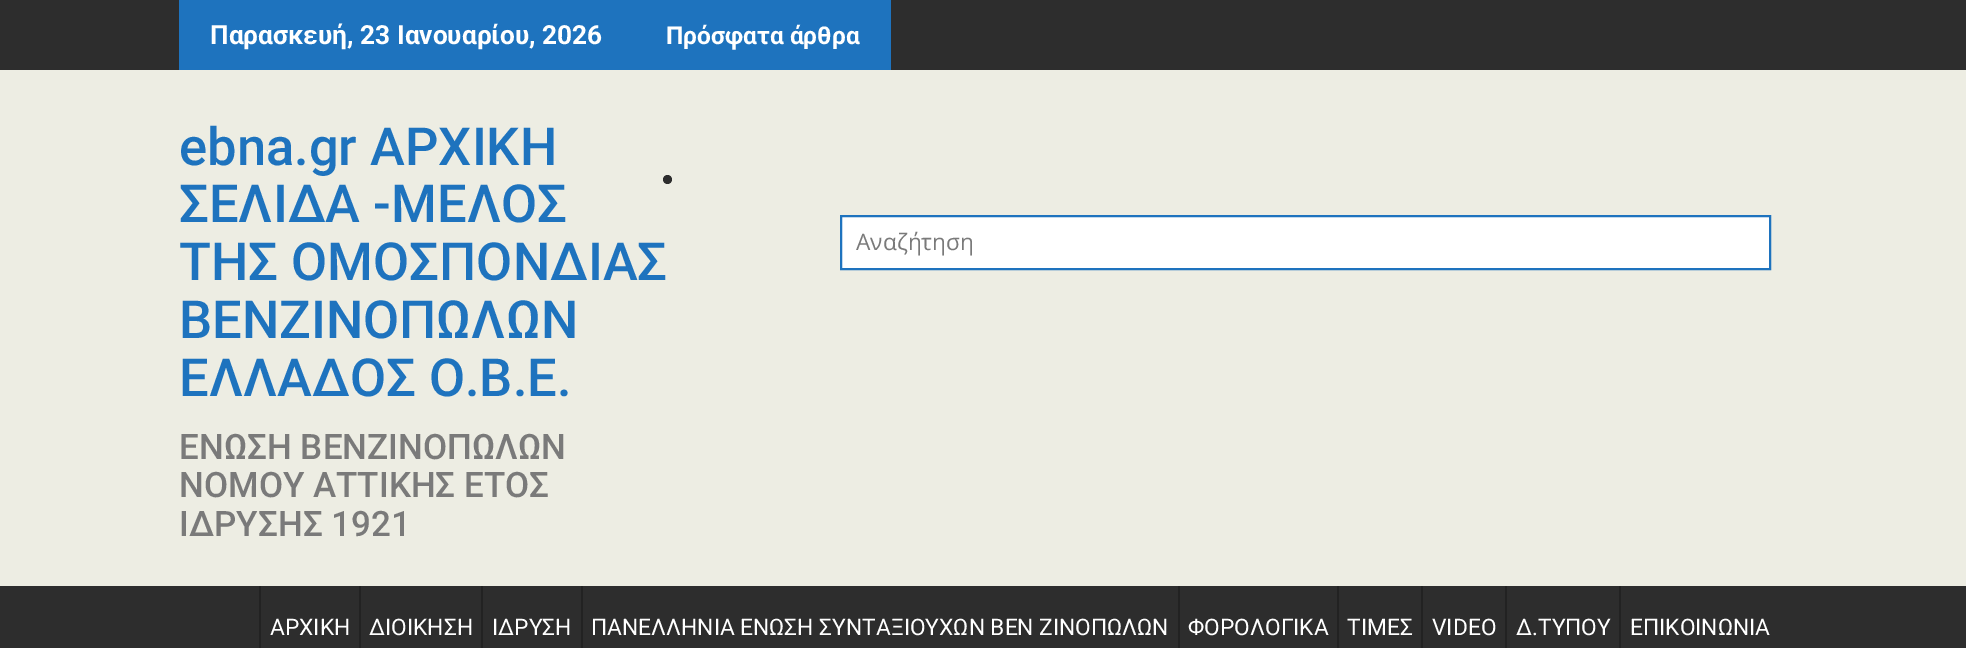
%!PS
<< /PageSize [1966 648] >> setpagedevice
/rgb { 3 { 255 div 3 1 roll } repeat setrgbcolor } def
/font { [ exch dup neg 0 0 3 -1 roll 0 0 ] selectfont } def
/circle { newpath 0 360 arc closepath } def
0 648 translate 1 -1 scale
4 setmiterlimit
237 237 227 rgb
0 0 1966 648 rectfill
45 45 45 rgb
0 0 1966 70 rectfill
30 115 190 rgb
179 0 712 70 rectfill
45 45 45 rgb
667.5 179.5 4.5 circle fill
255 255 255 rgb
841 216 moveto 1770 216 lineto 1770 269 lineto 841 269 lineto closepath gsave fill grestore
30 115 190 rgb
2 setlinewidth
stroke
[
  [0 586 1966 62 45 45 45]
  [259 586 2 62 34 34 34]
  [359 586 2 62 34 34 34]
  [481 586 2 62 34 34 34]
  [581 586 2 62 34 34 34]
  [1178 586 2 62 34 34 34]
  [1337 586 2 62 34 34 34]
  [1421 586 2 62 34 34 34]
  [1505 586 2 62 34 34 34]
  [1619 586 2 62 34 34 34]
] { aload pop rgb rectfill } forall
/Roboto-Bold 26.25 font
255 255 255 rgb
210 44 moveto (Παρασκευή, 23 Ιανουαρίου, 2026) show
/Roboto-Bold 24.5 font
666 44 moveto (Πρόσφατα άρθρα) show
/Roboto-Medium 52.5 font
30 115 190 rgb
[
  [(ebna.gr ΑΡΧΙΚΗ) 179 165]
  [(ΣΕΛΙΔΑ -ΜΕΛΟΣ) 179 222]
  [(ΤΗΣ ΟΜΟΣΠΟΝΔΙΑΣ) 179 280]
  [(ΒΕΝΖΙΝΟΠΩΛΩΝ) 179 338]
  [(ΕΛΛΑΔΟΣ Ο.Β.Ε.) 179 396]
] { aload pop moveto show } forall
/Roboto-Medium 35 font
122 122 122 rgb
[
  [(ΕΝΩΣΗ ΒΕΝΖΙΝΟΠΩΛΩΝ) 179 459]
  [(ΝΟΜΟΥ ΑΤΤΙΚΗΣ ΕΤΟΣ) 179 497]
  [(ΙΔΡΥΣΗΣ 1921) 179 536]
] { aload pop moveto show } forall
/OpenSans-Regular 22.75 font
856 250 moveto (Αναζήτηση) show
/Roboto-Regular 22.75 font
255 255 255 rgb
[
  [(ΑΡΧΙΚΗ) 270 635]
  [(ΔΙΟΙΚΗΣΗ) 369 635]
  [(ΙΔΡΥΣΗ) 492 635]
  [(ΠΑΝΕΛΛΗΝΙΑ ΕΝΩΣΗ ΣΥΝΤΑΞΙΟΥΧΩΝ ΒΕΝ ΖΙΝΟΠΩΛΩΝ) 591 635]
  [(ΦΟΡΟΛΟΓΙΚΑ) 1188 635]
  [(ΤΙΜΕΣ) 1347 635]
  [(VIDEO) 1432 635]
  [(Δ.ΤΥΠΟΥ) 1516 635]
  [(ΕΠΙΚΟΙΝΩΝΙΑ) 1630 635]
] { aload pop moveto show } forall
showpage
